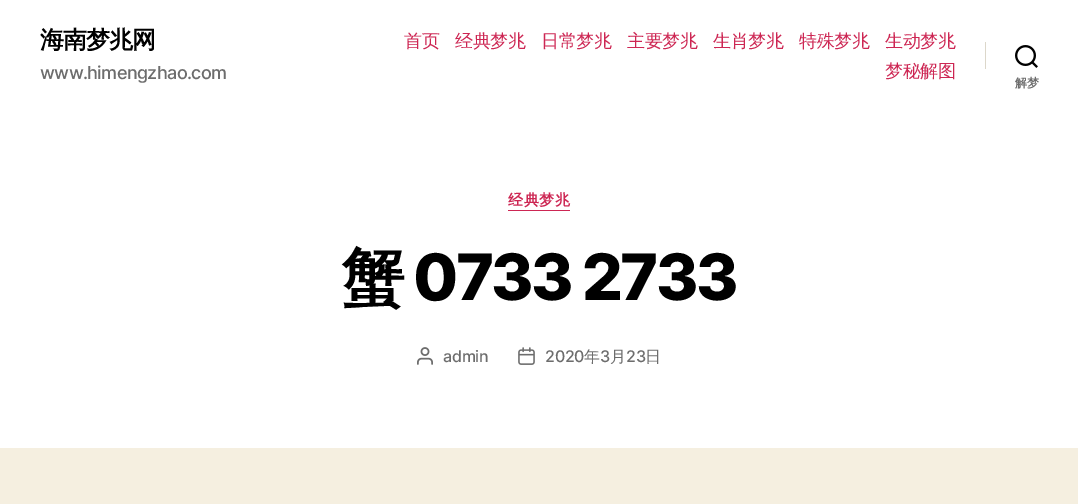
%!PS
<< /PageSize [1078 504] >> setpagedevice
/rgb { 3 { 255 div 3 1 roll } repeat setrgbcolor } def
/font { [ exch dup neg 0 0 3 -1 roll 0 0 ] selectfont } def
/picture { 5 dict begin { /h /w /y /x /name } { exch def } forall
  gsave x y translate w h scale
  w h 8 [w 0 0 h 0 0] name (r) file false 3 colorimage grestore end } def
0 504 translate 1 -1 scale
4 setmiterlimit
245 239 224 rgb
0 0 1078 504 rectfill
255 255 255 rgb
0 0 1078 448 rectfill
220 215 202 rgb
985 42 1 27 rectfill
(img/1.rgb) 1015 45 23 23 picture
205 38 83 rgb
508 210 62 1 rectfill
(img/2.rgb) 417 347 16 18 picture
(img/3.rgb) 518 347 17 18 picture
/WenQuanYiZenHei-Bold 24 font
0 0 0 rgb
40 48 moveto -1 0 (海南梦兆网) ashow
/Inter-Medium 18 font
109 109 109 rgb
40 79 moveto -0.6 0 (www.himengzhao.com) ashow
/WenQuanYiZenHei-Medium 18 font
205 38 83 rgb
404 47 moveto -0.5 0 (首页) ashow
455 47 moveto -0.5 0 (经典梦兆) ashow
541 47 moveto -0.5 0 (日常梦兆) ashow
627 47 moveto -0.5 0 (主要梦兆) ashow
713 47 moveto -0.5 0 (生肖梦兆) ashow
799 47 moveto -0.5 0 (特殊梦兆) ashow
885 47 moveto -0.5 0 (生动梦兆) ashow
885 77 moveto -0.5 0 (梦秘解图) ashow
/WenQuanYiZenHei-Bold 12 font
109 109 109 rgb
1015 87 moveto -0.25 0 (解梦) ashow
/WenQuanYiZenHei-Bold 15 font
205 38 83 rgb
508 205 moveto 0.5 0 (经典梦兆) ashow
/WenQuanYiZenHei-Bold 64 font
0 0 0 rgb
341 300 moveto -2.75 0 (蟹) ashow
/Inter-ExtraBold 64 font
413 300 moveto -2.75 0 (0733 2733) ashow
/Inter-Medium 16 font
109 109 109 rgb
443 362 moveto -0.25 0 (admin) ashow
545 362 moveto -0.25 0 (2020) ashow
/WenQuanYiZenHei-Medium 16 font
584 362 moveto -0.25 0 (年) ashow
/Inter-Medium 16 font
600 362 moveto -0.25 0 (3) ashow
/WenQuanYiZenHei-Medium 16 font
610 362 moveto -0.25 0 (月) ashow
/Inter-Medium 16 font
626 362 moveto -0.25 0 (23) ashow
/WenQuanYiZenHei-Medium 16 font
645 362 moveto -0.25 0 (日) ashow
showpage
